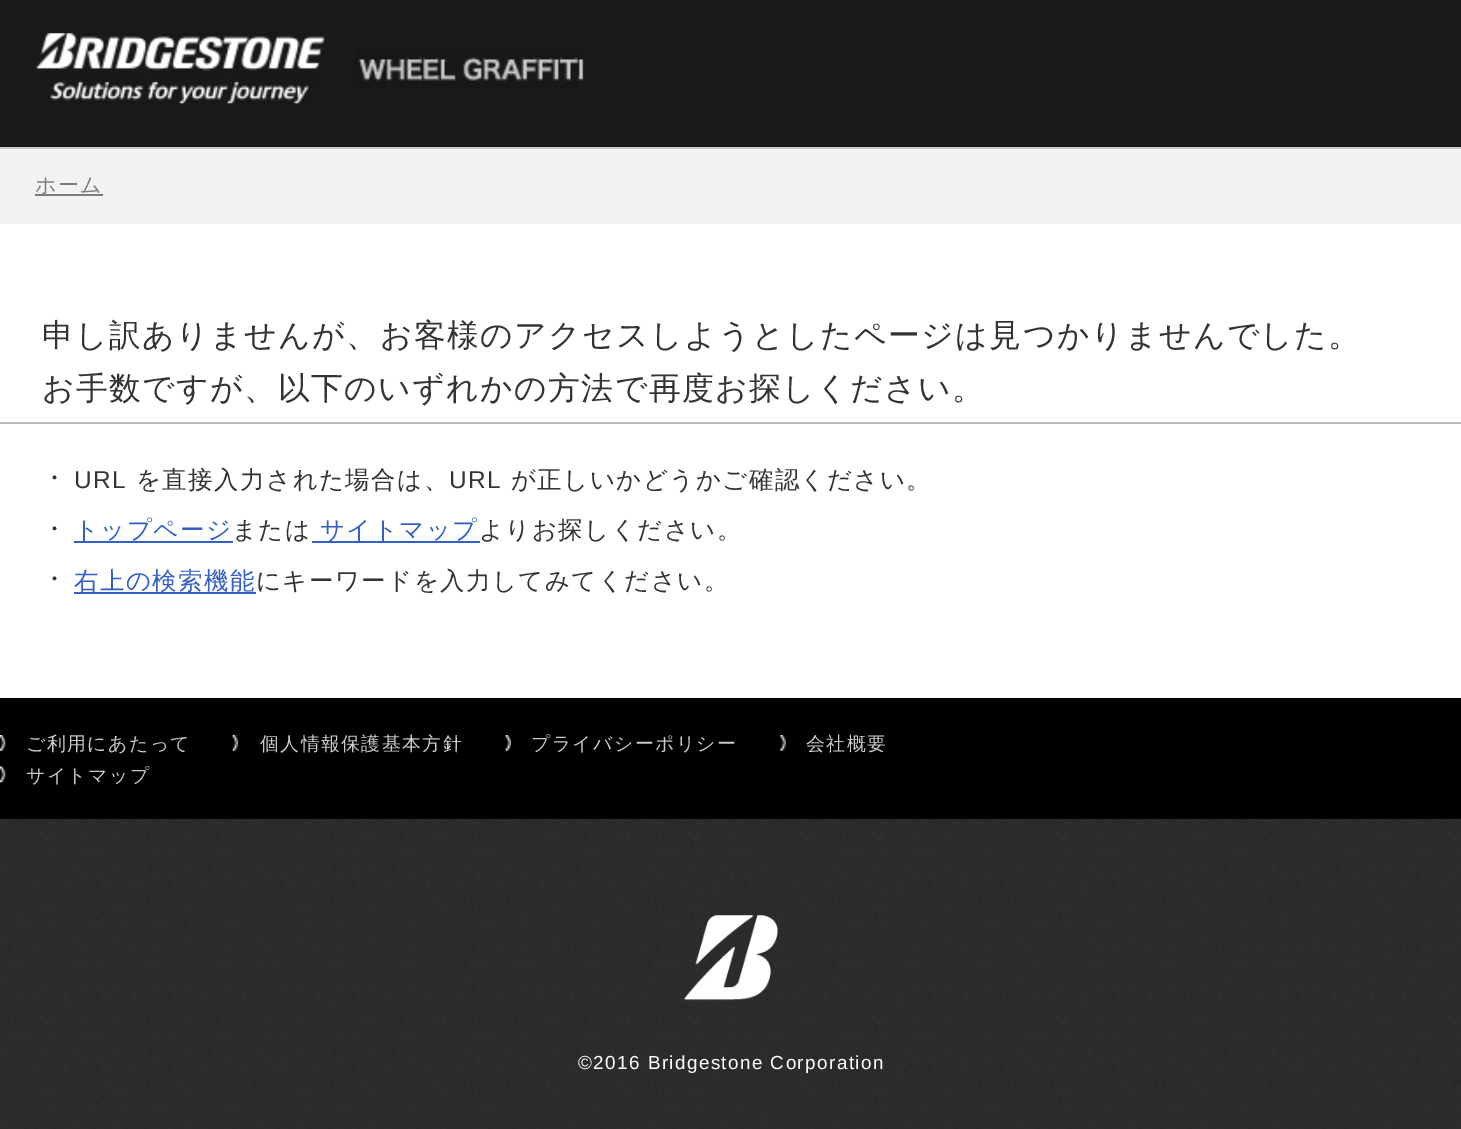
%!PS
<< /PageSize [1461 1129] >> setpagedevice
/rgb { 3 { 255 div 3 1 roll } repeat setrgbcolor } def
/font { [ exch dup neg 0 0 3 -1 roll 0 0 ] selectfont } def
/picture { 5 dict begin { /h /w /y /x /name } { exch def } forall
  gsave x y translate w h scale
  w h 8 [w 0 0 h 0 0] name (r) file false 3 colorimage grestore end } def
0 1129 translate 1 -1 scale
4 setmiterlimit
255 255 255 rgb
0 0 1461 1129 rectfill
26 26 26 rgb
0 0 1461 147 rectfill
204 204 204 rgb
0 147 1461 2 rectfill
(img/1.rgb) 36 33 289 71 picture
(img/2.rgb) 354 47 230 42 picture
[
  [0 149 1461 75 242 242 242]
  [35 194 68 2 125 125 125]
  [0 422 1461 2 187 187 187]
  [74 541 159 2 51 96 197]
  [312 541 168 2 51 96 197]
  [74 592 182 2 51 96 197]
] { aload pop rgb rectfill } forall
(img/3.rgb) 0 819 1461 310 picture
0 0 0 rgb
0 698 1461 121 rectfill
(img/4.rgb) 0 735 6 16 picture
(img/5.rgb) 232 735 6 16 picture
(img/5.rgb) 505 735 6 16 picture
(img/6.rgb) 780 735 6 16 picture
(img/7.rgb) 0 766 6 17 picture
(img/8.rgb) 684 915 94 86 picture
/WenQuanYiZenHei-Medium 21 font
125 125 125 rgb
35 192 moveto 1.4 0 (ホーム) ashow
/WenQuanYiZenHei-Medium 31.85 font
51 51 51 rgb
42 346 moveto 1.4 0 (申し訳ありませんが、お客様のアクセスしようとしたページは見つかりませんでした。) ashow
42 399 moveto 1.4 0 (お手数ですが、以下のいずれかの方法で再度お探しください。) ashow
/WenQuanYiZenHei-Medium 24.5 font
42 486 moveto 1.4 0 (・) ashow
/LiberationSans-Regular 24.5 font
74 488 moveto 1.4 0 (URL) ashow
/WenQuanYiZenHei-Medium 24.5 font
136 488 moveto 1.4 0 (を直接入力された場合は、) ashow
/LiberationSans-Regular 24.5 font
449 488 moveto 1.4 0 (URL) ashow
/WenQuanYiZenHei-Medium 24.5 font
511 488 moveto 1.4 0 (が正しいかどうかご確認ください。) ashow
42 537 moveto 1.4 0 (・) ashow
51 96 197 rgb
74 538 moveto 1.4 0 (トップページ) ashow
51 51 51 rgb
232 538 moveto 1.4 0 (または) ashow
51 96 197 rgb
320 538 moveto 1.4 0 (サイトマップ) ashow
51 51 51 rgb
479 538 moveto 1.4 0 (よりお探しください。) ashow
42 587 moveto 1.4 0 (・) ashow
51 96 197 rgb
74 589 moveto 1.4 0 (右上の検索機能) ashow
51 51 51 rgb
256 589 moveto 1.4 0 (にキーワードを入力してみてください。) ashow
/WenQuanYiZenHei-Medium 18.9 font
204 204 204 rgb
26 750 moveto 1.4 0 (ご利用にあたって) ashow
260 750 moveto 1.4 0 (個人情報保護基本方針) ashow
531 750 moveto 1.4 0 (プライバシーポリシー) ashow
806 750 moveto 1.4 0 (会社概要) ashow
26 782 moveto 1.4 0 (サイトマップ) ashow
/LiberationSans-Regular 18.9 font
255 255 255 rgb
578 1069 moveto 1.4 0 (©2016 Bridgestone Corporation) ashow
showpage
